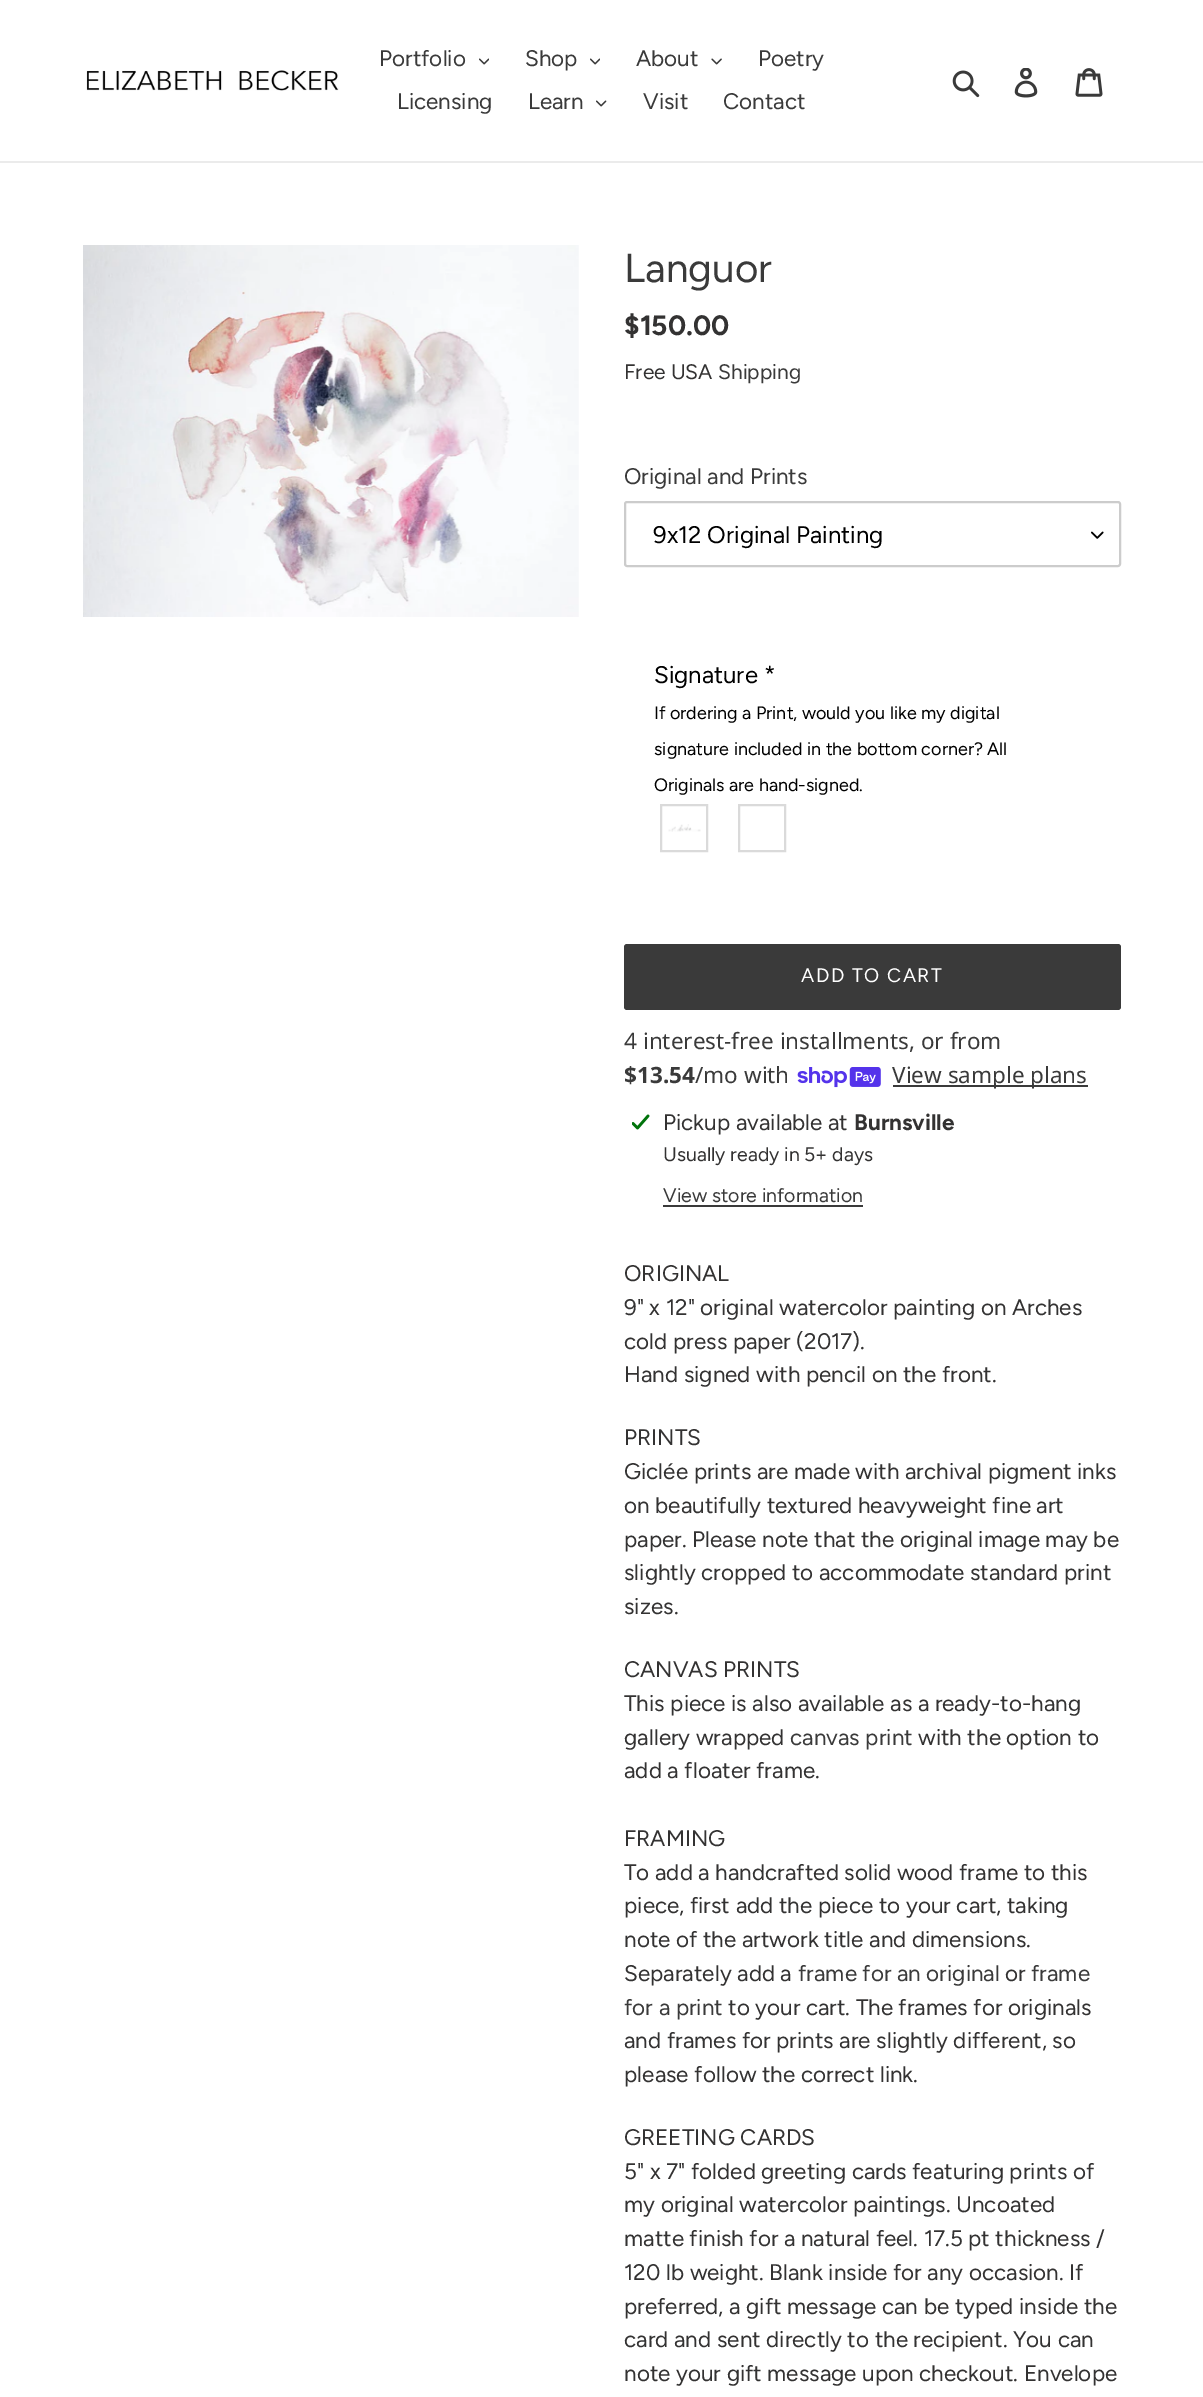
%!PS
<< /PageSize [1203 2397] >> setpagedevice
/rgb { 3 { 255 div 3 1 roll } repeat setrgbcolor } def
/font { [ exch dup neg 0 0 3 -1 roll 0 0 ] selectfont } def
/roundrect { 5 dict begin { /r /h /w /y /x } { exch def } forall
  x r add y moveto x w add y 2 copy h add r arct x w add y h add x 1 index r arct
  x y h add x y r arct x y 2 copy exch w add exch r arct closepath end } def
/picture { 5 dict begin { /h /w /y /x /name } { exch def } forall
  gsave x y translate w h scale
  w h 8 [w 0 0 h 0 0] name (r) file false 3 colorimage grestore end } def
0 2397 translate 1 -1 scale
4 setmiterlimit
255 255 255 rgb
0 0 1203 2397 rectfill
235 235 235 rgb
0 161 1203 2 rectfill
(img/1.rgb) 86 70 253 21 picture
(img/2.rgb) 479 58 10 7 picture
(img/2.rgb) 590 58 10 7 picture
(img/3.rgb) 711 58 11 7 picture
(img/4.rgb) 596 100 11 7 picture
(img/5.rgb) 952 70 28 28 picture
(img/6.rgb) 1014 68 24 30 picture
(img/7.rgb) 1075 68 28 29 picture
(img/8.rgb) 83 245 496 372 picture
(img/9.rgb) 1091 531 13 8 picture
204 204 204 rgb
2 setlinewidth
625 502 495 64 2 roundrect stroke
(img/10.rgb) 668 824 33 8 picture
218 218 218 rgb
661 805 46 46 rectstroke
739 805 46 46 rectstroke
58 58 58 rgb
624 944 497 66 3 roundrect fill
(img/11.rgb) 797 1067 84 21 picture
893 1085 195 2 rectfill
(img/12.rgb) 632 1114 18 16 picture
663 1205 200 2 rectfill
/Figtree-Regular 22.5 font
[
  [(Portfolio) 379 66]
  [(Shop) 525 66]
  [(About) 636 66]
  [(Poetry) 758 66]
  [(Licensing) 397 109]
  [(Learn) 528 109]
  [(Visit) 643 109]
  [(Contact) 723 109]
] { aload pop moveto show } forall
/Figtree-Regular 40.5 font
624 282 moveto (Languor) show
/Figtree-Bold 28 font
51 50 50 rgb
624 335 moveto ($150.00) show
/Figtree-Regular 21 font
624 379 moveto (Free USA) show
58 58 58 rgb
718 379 moveto (Shipping) show
/Figtree-Regular 22.5 font
624 484 moveto (Original and Prints) show
/Figtree-Regular 24 font
0 0 0 rgb
653 543 moveto (9x12 Original Painting) show
654 683 moveto (Signature *) show
/Figtree-Regular 18 font
[
  [(If ordering a Print, would you like my digital) 654 719]
  [(signature included in the bottom corner? All) 654 755]
  [(Originals are hand-signed.) 654 791]
] { aload pop moveto show } forall
/Figtree-Regular 19.5 font
255 255 255 rgb
801 982 moveto 1.5 0 (ADD TO CART) ashow
/NotoSans-Regular 22.5 font
58 58 58 rgb
624 1049 moveto (4 interest-free installments, or from) show
/NotoSans-Bold 22.5 font
624 1083 moveto ($13.54) show
/NotoSans-Regular 22.5 font
695 1083 moveto (/mo with) show
892 1083 moveto (View sample plans) show
/Figtree-Regular 22.5 font
51 50 50 rgb
663 1130 moveto (Pickup available at) show
/Figtree-Bold 22.5 font
854 1130 moveto (Burnsville) show
/Figtree-Regular 19.5 font
663 1161 moveto (Usually ready in 5+ days) show
58 58 58 rgb
663 1202 moveto (View store information) show
/Figtree-Regular 22.5 font
51 50 50 rgb
[
  [(ORIGINAL) 624 1281]
  [(9" x 12" original watercolor painting on Arches) 624 1315]
  [(cold press paper \(2017\).) 624 1349]
  [(Hand signed with pencil on the front.) 624 1382]
  [(PRINTS) 624 1445]
  [(Giclée prints are made with archival pigment inks) 624 1479]
  [(on beautifully textured heavyweight fine art) 624 1513]
  [(paper. Please note that the original image may be) 624 1547]
  [(slightly cropped to accommodate standard print) 624 1580]
  [(sizes.) 624 1614]
  [(CANVAS PRINTS) 624 1677]
  [(This piece is also available as a ready-to-hang) 624 1711]
  [(gallery wrapped) 624 1745]
] { aload pop moveto show } forall
58 58 58 rgb
790 1745 moveto (canvas print) show
51 50 50 rgb
[
  [(with the option to) 918 1745]
  [(add a floater frame.) 624 1778]
  [(FRAMING) 624 1846]
  [(To add a handcrafted solid wood frame to this) 624 1880]
  [(piece, first add the piece to your cart, taking) 624 1913]
  [(note of the artwork title and dimensions.) 624 1947]
  [(Separately add a) 624 1981]
] { aload pop moveto show } forall
58 58 58 rgb
798 1981 moveto (frame for an original) show
51 50 50 rgb
1005 1981 moveto (or) show
58 58 58 rgb
1031 1981 moveto (frame) show
624 2015 moveto (for a print) show
51 50 50 rgb
[
  [(to your cart. The frames for originals) 728 2015]
  [(and frames for prints are slightly different, so) 624 2048]
  [(please follow the correct link.) 624 2082]
  [(GREETING CARDS) 624 2145]
  [(5" x 7" folded greeting cards featuring prints of) 624 2179]
  [(my original watercolor paintings. Uncoated) 624 2212]
  [(matte finish for a natural feel. 17.5 pt thickness /) 624 2246]
  [(120 lb weight. Blank inside for any occasion. If) 624 2280]
  [(preferred, a gift message can be typed inside the) 624 2314]
  [(card and sent directly to the recipient. You can) 624 2347]
  [(note your gift message upon checkout. Envelope) 624 2381]
] { aload pop moveto show } forall
showpage
